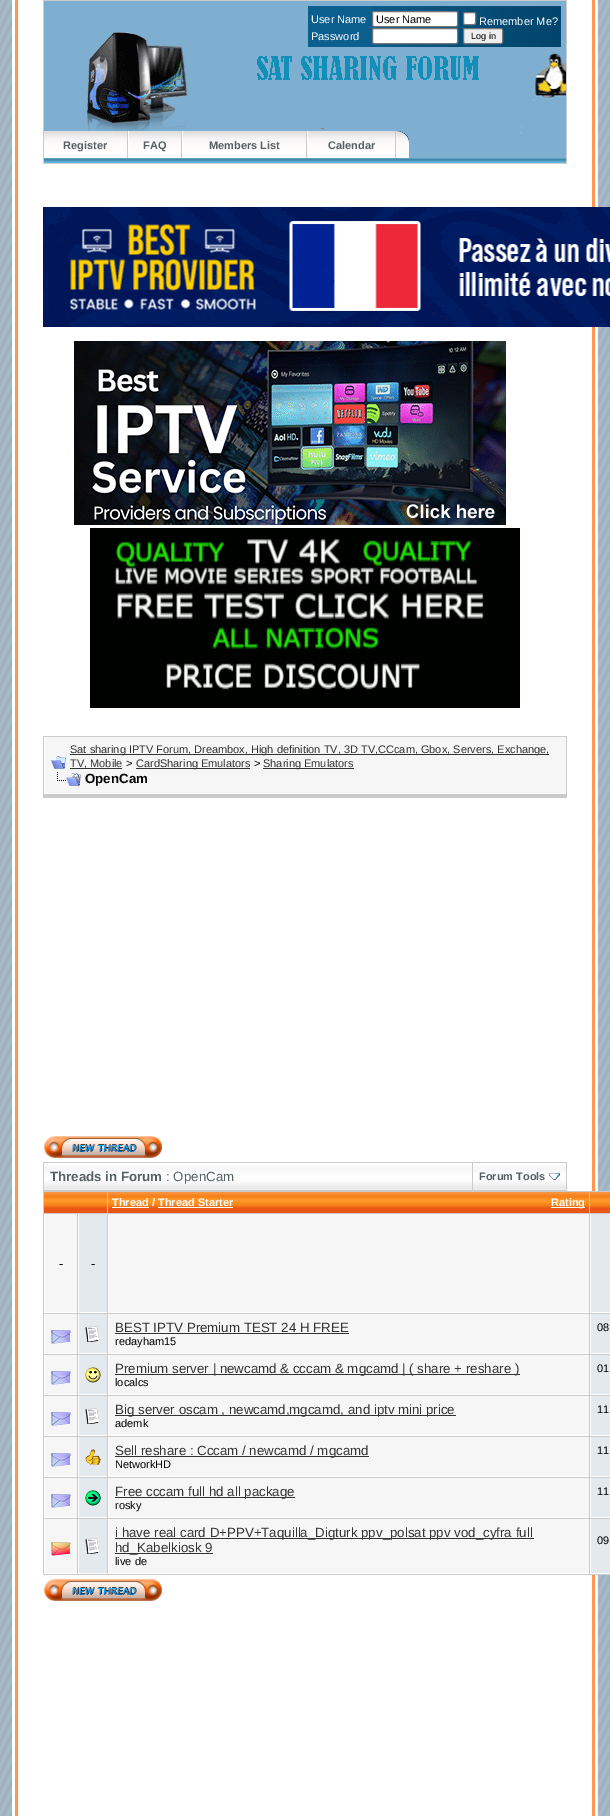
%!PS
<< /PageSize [610 1816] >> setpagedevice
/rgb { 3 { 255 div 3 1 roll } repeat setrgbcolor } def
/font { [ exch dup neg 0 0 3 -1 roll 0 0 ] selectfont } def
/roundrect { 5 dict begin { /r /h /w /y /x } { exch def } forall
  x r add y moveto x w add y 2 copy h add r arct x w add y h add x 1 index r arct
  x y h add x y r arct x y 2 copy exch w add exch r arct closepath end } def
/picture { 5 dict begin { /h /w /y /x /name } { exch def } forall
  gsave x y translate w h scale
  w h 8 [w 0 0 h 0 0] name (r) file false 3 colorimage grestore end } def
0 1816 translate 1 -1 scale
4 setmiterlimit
255 255 255 rgb
0 0 610 1816 rectfill
(img/1.rgb) 0 0 610 1816 picture
18 0 574 1816 rectfill
(img/2.rgb) 12 0 6 1816 picture
(img/3.rgb) 592 0 6 1816 picture
203 203 203 rgb
43 0 524 164 rectfill
(img/4.rgb) 44 1 522 157 picture
10 95 143 rgb
308 6 64 41 rectfill
(img/5.rgb) 372 6 189 41 picture
255 255 255 rgb
372.5 11.5 85 15 1.5 roundrect gsave fill grestore
118 118 118 rgb
stroke
255 255 255 rgb
463.5 12.5 12 12 1.5 roundrect gsave fill grestore
118 118 118 rgb
stroke
255 255 255 rgb
372.5 28.5 85 15 1.5 roundrect gsave fill grestore
118 118 118 rgb
stroke
239 239 239 rgb
463.5 28.5 39 15 1.5 roundrect gsave fill grestore
118 118 118 rgb
stroke
(img/6.rgb) 257 56 222 24 picture
(img/7.rgb) 44 131 83 27 picture
203 203 203 rgb
127 131 1 27 rectfill
(img/8.rgb) 129 131 52 27 picture
181 131 1 27 rectfill
255 255 255 rgb
128 131 1 27 rectfill
(img/9.rgb) 183 131 123 27 picture
203 203 203 rgb
306 131 1 27 rectfill
255 255 255 rgb
182 131 1 27 rectfill
(img/10.rgb) 308 131 87 27 picture
203 203 203 rgb
395 131 1 27 rectfill
255 255 255 rgb
307 131 1 27 rectfill
(img/11.rgb) 396 131 13 27 picture
(img/12.rgb) 44 158 522 5 picture
(img/13.rgb) 43 207 567 120 picture
(img/14.rgb) 74 341 432 184 picture
(img/15.rgb) 90 528 430 180 picture
[
  [43 736 524 59 203 203 203]
  [45 737 521 56 246 246 246]
  [44 793 522 1 255 255 255]
  [44 737 1 57 255 255 255]
] { aload pop rgb rectfill } forall
(img/16.rgb) 51 756 15 13 picture
[
  [70 754 479 1 51 51 51]
  [70 768 52 1 51 51 51]
  [136 768 114 1 51 51 51]
  [263 768 91 1 51 51 51]
] { aload pop rgb rectfill } forall
(img/17.rgb) 57 772 24 14 picture
[
  [44 795 522 2 203 203 203]
  [566 795 1 3 203 203 203]
  [43 797 524 1 203 203 203]
  [43 795 1 3 203 203 203]
] { aload pop rgb rectfill } forall
(img/18.rgb) 44 1136 119 22 picture
43 1162 524 29 rectfill
235 235 235 rgb
44 1186 428 4 rectfill
(img/19.rgb) 44 1163 428 23 picture
473 1186 93 4 rectfill
(img/20.rgb) 473 1163 93 23 picture
(img/21.rgb) 549 1173 11 7 picture
203 203 203 rgb
43 1191 567 384 rectfill
233 86 22 rgb
44 1208 63 5 rectfill
(img/22.rgb) 44 1192 63 16 picture
108 1208 481 5 rectfill
(img/23.rgb) 108 1192 481 16 picture
[
  [112 1207 37 1 255 255 255]
  [551 1207 34 1 255 255 255]
  [158 1207 75 1 255 255 255]
  [590 1208 20 5 233 86 22]
] { aload pop rgb rectfill } forall
(img/24.rgb) 590 1192 20 16 picture
[
  [45 1214 32 98 246 246 246]
  [44 1312 33 1 255 255 255]
  [44 1214 1 99 255 255 255]
  [79 1214 28 98 228 233 238]
  [78 1312 29 1 255 255 255]
  [78 1214 1 99 255 255 255]
  [109 1214 480 98 246 246 246]
  [108 1312 481 1 255 255 255]
  [108 1214 1 99 255 255 255]
  [591 1214 19 98 228 233 238]
  [590 1312 20 1 255 255 255]
  [590 1214 1 99 255 255 255]
  [45 1314 32 39 246 246 246]
  [44 1353 33 1 255 255 255]
  [44 1314 1 40 255 255 255]
] { aload pop rgb rectfill } forall
(img/25.rgb) 51 1330 20 14 picture
[
  [79 1314 28 39 228 233 238]
  [78 1353 29 1 255 255 255]
  [78 1314 1 40 255 255 255]
] { aload pop rgb rectfill } forall
(img/26.rgb) 85 1326 15 16 picture
[
  [109 1314 480 39 246 246 246]
  [108 1353 481 1 255 255 255]
  [108 1314 1 40 255 255 255]
  [115 1333 234 1 51 51 51]
  [591 1314 19 39 228 233 238]
  [590 1353 20 1 255 255 255]
  [590 1314 1 40 255 255 255]
  [45 1355 32 39 246 246 246]
  [44 1394 33 1 255 255 255]
  [44 1355 1 40 255 255 255]
] { aload pop rgb rectfill } forall
(img/25.rgb) 51 1371 20 14 picture
[
  [79 1355 28 39 228 233 238]
  [78 1394 29 1 255 255 255]
  [78 1355 1 40 255 255 255]
] { aload pop rgb rectfill } forall
(img/27.rgb) 85 1367 16 16 picture
[
  [109 1355 480 39 246 246 246]
  [108 1394 481 1 255 255 255]
  [108 1355 1 40 255 255 255]
  [115 1374 405 1 51 51 51]
  [591 1355 19 39 228 233 238]
  [590 1394 20 1 255 255 255]
  [590 1355 1 40 255 255 255]
  [45 1396 32 39 246 246 246]
  [44 1435 33 1 255 255 255]
  [44 1396 1 40 255 255 255]
] { aload pop rgb rectfill } forall
(img/25.rgb) 51 1412 20 14 picture
[
  [79 1396 28 39 228 233 238]
  [78 1435 29 1 255 255 255]
  [78 1396 1 40 255 255 255]
] { aload pop rgb rectfill } forall
(img/26.rgb) 85 1408 15 16 picture
[
  [109 1396 480 39 246 246 246]
  [108 1435 481 1 255 255 255]
  [108 1396 1 40 255 255 255]
  [115 1415 341 1 51 51 51]
  [591 1396 19 39 228 233 238]
  [590 1435 20 1 255 255 255]
  [590 1396 1 40 255 255 255]
  [45 1437 32 39 246 246 246]
  [44 1476 33 1 255 255 255]
  [44 1437 1 40 255 255 255]
] { aload pop rgb rectfill } forall
(img/25.rgb) 51 1453 20 14 picture
[
  [79 1437 28 39 228 233 238]
  [78 1476 29 1 255 255 255]
  [78 1437 1 40 255 255 255]
] { aload pop rgb rectfill } forall
(img/28.rgb) 85 1449 16 16 picture
[
  [109 1437 480 39 246 246 246]
  [108 1476 481 1 255 255 255]
  [108 1437 1 40 255 255 255]
  [115 1456 254 1 51 51 51]
  [591 1437 19 39 228 233 238]
  [590 1476 20 1 255 255 255]
  [590 1437 1 40 255 255 255]
  [45 1478 32 39 246 246 246]
  [44 1517 33 1 255 255 255]
  [44 1478 1 40 255 255 255]
] { aload pop rgb rectfill } forall
(img/25.rgb) 51 1494 20 14 picture
[
  [79 1478 28 39 228 233 238]
  [78 1517 29 1 255 255 255]
  [78 1478 1 40 255 255 255]
] { aload pop rgb rectfill } forall
(img/29.rgb) 85 1490 16 16 picture
[
  [109 1478 480 39 246 246 246]
  [108 1517 481 1 255 255 255]
  [108 1478 1 40 255 255 255]
  [115 1497 180 1 51 51 51]
  [591 1478 19 39 228 233 238]
  [590 1517 20 1 255 255 255]
  [590 1478 1 40 255 255 255]
  [45 1519 32 54 246 246 246]
  [44 1573 33 1 255 255 255]
  [44 1519 1 55 255 255 255]
] { aload pop rgb rectfill } forall
(img/30.rgb) 51 1542 20 14 picture
[
  [79 1519 28 54 228 233 238]
  [78 1573 29 1 255 255 255]
  [78 1519 1 55 255 255 255]
] { aload pop rgb rectfill } forall
(img/26.rgb) 85 1538 15 16 picture
[
  [109 1519 480 54 246 246 246]
  [108 1573 481 1 255 255 255]
  [108 1519 1 55 255 255 255]
  [115 1538 419 1 51 51 51]
  [115 1553 98 1 51 51 51]
  [591 1519 19 54 228 233 238]
  [590 1573 20 1 255 255 255]
  [590 1519 1 55 255 255 255]
] { aload pop rgb rectfill } forall
(img/18.rgb) 44 1579 119 22 picture
/LiberationSans-Regular 11 font
311 23 moveto (User Name) show
0 0 0 rgb
376 23 moveto (User Name) show
255 255 255 rgb
479 25 moveto (Remember Me?) show
311 40 moveto (Password) show
/LiberationSans-Regular 9 font
0 0 0 rgb
471 39 moveto (Log in) show
/LiberationSans-Bold 11 font
86 95 100 rgb
[
  [(Register) 63 149]
  [(FAQ) 143 149]
  [(Members List) 209 149]
  [(Calendar) 328 149]
] { aload pop moveto show } forall
/LiberationSans-Regular 11 font
51 51 51 rgb
70 753 moveto (Sat sharing IPTV Forum, Dreambox, High definition TV, 3D TV,CCcam, Gbox, Servers, Exchange,) show
70 767 moveto (TV, Mobile) show
0 0 0 rgb
126 767 moveto (>) show
51 51 51 rgb
136 767 moveto (CardSharing Emulators) show
0 0 0 rgb
254 767 moveto (>) show
51 51 51 rgb
263 767 moveto (Sharing Emulators) show
/LiberationSans-Bold 13.3 font
0 0 0 rgb
85 783 moveto (OpenCam) show
86 95 100 rgb
50 1181 moveto (Threads in Forum) show
/LiberationSans-Regular 13.3 font
166 1181 moveto (: OpenCam) show
/LiberationSans-Bold 11 font
479 1180 moveto (Forum Tools) show
255 255 255 rgb
112 1206 moveto (Thread / Thread Starter) show
551 1206 moveto (Rating) show
/LiberationSans-Regular 13.3 font
0 0 0 rgb
59 1268 moveto (-) show
91 1268 moveto (-) show
51 51 51 rgb
115 1332 moveto (BEST IPTV Premium TEST 24 H FREE) show
/LiberationSans-Regular 11 font
0 0 0 rgb
115 1345 moveto (redayham15) show
597 1331 moveto (08) show
/LiberationSans-Regular 13.3 font
51 51 51 rgb
115 1373 moveto (Premium server | newcamd & cccam & mgcamd | \( share + reshare \)) show
/LiberationSans-Regular 11 font
0 0 0 rgb
115 1386 moveto (localcs) show
597 1372 moveto (01) show
/LiberationSans-Regular 13.3 font
51 51 51 rgb
115 1414 moveto (Big server oscam , newcamd,mgcamd, and iptv mini price) show
/LiberationSans-Regular 11 font
0 0 0 rgb
115 1427 moveto (ademk) show
597 1413 moveto (11) show
/LiberationSans-Regular 13.3 font
51 51 51 rgb
115 1455 moveto (Sell reshare : Cccam / newcamd / mgcamd) show
/LiberationSans-Regular 11 font
0 0 0 rgb
115 1468 moveto (NetworkHD) show
597 1454 moveto (11) show
/LiberationSans-Regular 13.3 font
51 51 51 rgb
115 1496 moveto (Free cccam full hd all package) show
/LiberationSans-Regular 11 font
0 0 0 rgb
115 1509 moveto (rosky) show
597 1495 moveto (11) show
/LiberationSans-Regular 13.3 font
51 51 51 rgb
115 1537 moveto (i have real card D+PPV+Taquilla_Digturk ppv_polsat ppv vod_cyfra full) show
115 1552 moveto (hd_Kabelkiosk 9) show
/LiberationSans-Regular 11 font
0 0 0 rgb
115 1565 moveto (live de) show
597 1544 moveto (09) show
showpage
